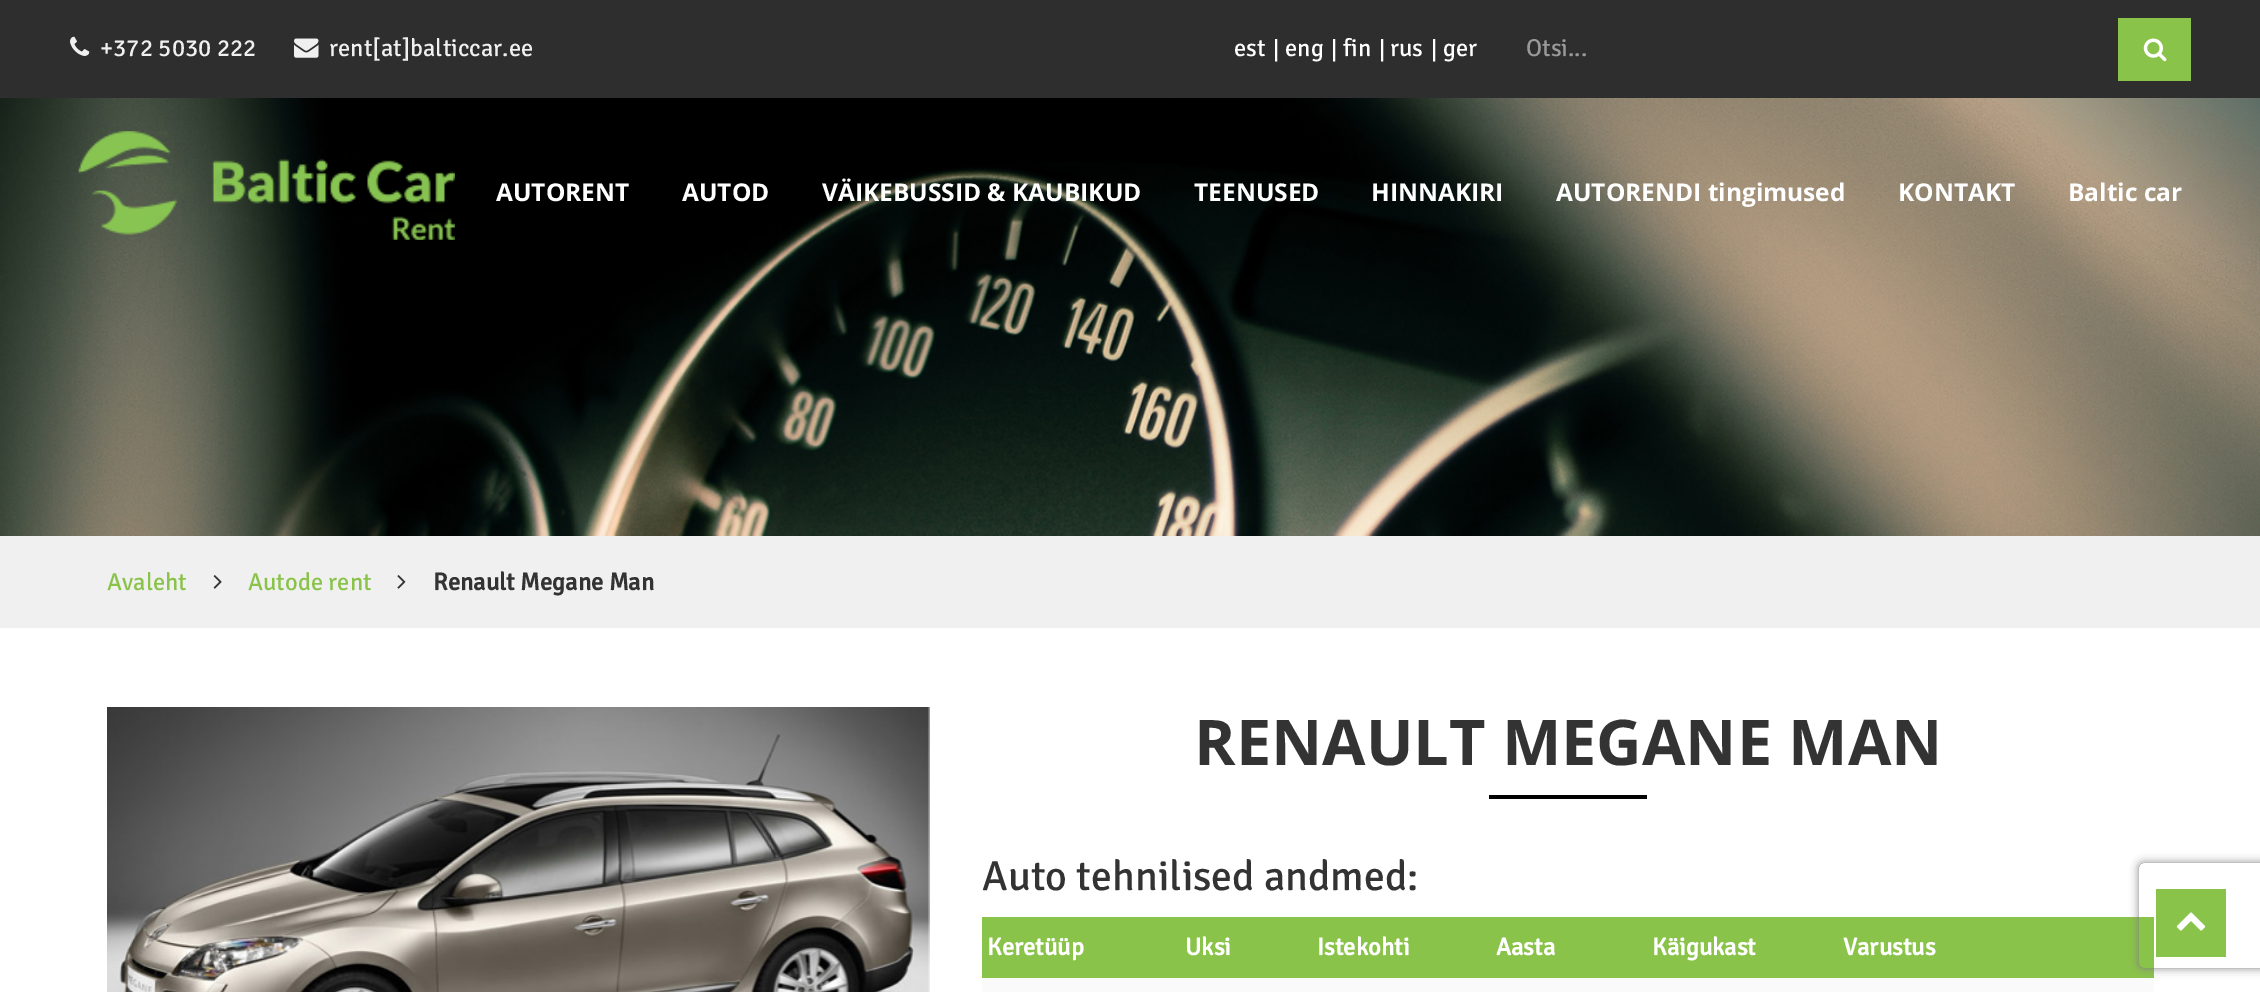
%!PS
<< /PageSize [2260 992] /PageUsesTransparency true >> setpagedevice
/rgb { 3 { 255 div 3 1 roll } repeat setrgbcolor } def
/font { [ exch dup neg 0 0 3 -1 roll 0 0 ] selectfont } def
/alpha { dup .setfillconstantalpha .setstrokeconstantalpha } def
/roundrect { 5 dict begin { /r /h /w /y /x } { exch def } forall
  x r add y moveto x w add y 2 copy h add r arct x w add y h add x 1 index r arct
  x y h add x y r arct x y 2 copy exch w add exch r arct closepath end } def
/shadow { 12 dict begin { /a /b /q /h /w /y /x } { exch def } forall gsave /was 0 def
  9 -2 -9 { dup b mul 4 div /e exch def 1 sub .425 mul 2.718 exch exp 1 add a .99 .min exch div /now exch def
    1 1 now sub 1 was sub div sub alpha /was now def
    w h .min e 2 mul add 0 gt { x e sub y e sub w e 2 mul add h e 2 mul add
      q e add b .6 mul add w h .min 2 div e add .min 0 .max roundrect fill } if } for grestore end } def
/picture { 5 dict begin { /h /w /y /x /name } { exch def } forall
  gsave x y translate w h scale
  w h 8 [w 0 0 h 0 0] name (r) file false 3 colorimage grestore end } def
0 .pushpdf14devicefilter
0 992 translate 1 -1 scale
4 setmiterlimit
255 255 255 rgb
0 0 2260 992 rectfill
46 46 46 rgb
0 0 2260 98 rectfill
(img/1.rgb) 70 36 20 20 picture
(img/2.rgb) 294 38 25 20 picture
138 195 73 rgb
2118 18 73 63 rectfill
(img/3.rgb) 2143 38 24 24 picture
(img/4.rgb) 0 98 2260 438 picture
(img/5.rgb) 78 131 377 109 picture
241 240 241 rgb
0 536 2260 92 rectfill
(img/6.rgb) 213 575 9 14 picture
(img/7.rgb) 397 575 9 14 picture
(img/8.rgb) 107 707 823 285 picture
[
  [1489 795 158 4 0 0 0]
  [982 917 1172 61 138 195 73]
  [982 978 1172 14 250 250 250]
] { aload pop rgb rectfill } forall
gsave
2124 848 moveto 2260 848 lineto 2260 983 lineto 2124 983 lineto closepath 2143 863 moveto 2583 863 lineto 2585 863 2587 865 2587 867 curveto 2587 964 lineto 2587 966 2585 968 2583 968 curveto 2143 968 lineto 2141 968 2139 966 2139 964 curveto 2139 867 lineto 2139 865 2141 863 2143 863 curveto closepath eoclip newpath
128 128 128 rgb
2139 863 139 105 4 4.5 1 shadow
grestore
138 195 73 rgb
2156 889 70 68 rectfill
(img/9.rgb) 2176 912 30 19 picture
/Signika-Light 24.5 font
240 240 240 rgb
100 56 moveto (+372 5030 222) show
329 56 moveto (rent[at]balticcar.ee) show
255 255 255 rgb
[
  [(est) 1234 56]
  [(|) 1273 58]
  [(eng) 1285 56]
  [(|) 1331 58]
  [(fin) 1343 56]
  [(|) 1379 58]
  [(rus) 1390 56]
  [(|) 1431 58]
  [(ger) 1443 56]
] { aload pop moveto show } forall
153 153 153 rgb
1526 56 moveto (Otsi...) show
/OpenSans-Bold 24.5 font
255 255 255 rgb
[
  [(AUTORENT) 496 201]
  [(AUTOD) 682 201]
  [(VÄIKEBUSSID & KAUBIKUD) 822 201]
  [(TEENUSED) 1194 201]
  [(HINNAKIRI) 1371 201]
  [(AUTORENDI tingimused) 1556 201]
  [(KONTAKT) 1898 201]
  [(Baltic car) 2068 201]
] { aload pop moveto show } forall
/Signika-Light 24.5 font
138 195 73 rgb
107 590 moveto (Avaleht) show
248 590 moveto (Autode rent) show
/Signika-Bold 24.5 font
51 51 51 rgb
433 590 moveto (Renault Megane Man) show
/OpenSans-Bold 63 font
1194 765 moveto (RENAULT MEGANE MAN) show
/Signika-Light 42 font
982 890 moveto (Auto tehnilised andmed:) show
/Signika-Bold 24.5 font
255 255 255 rgb
[
  [(Keretüüp) 987 955]
  [(Uksi) 1185 955]
  [(Istekohti) 1317 955]
  [(Aasta) 1496 955]
  [(Käigukast) 1652 955]
  [(Varustus) 1843 955]
] { aload pop moveto show } forall
.poppdf14devicefilter showpage
